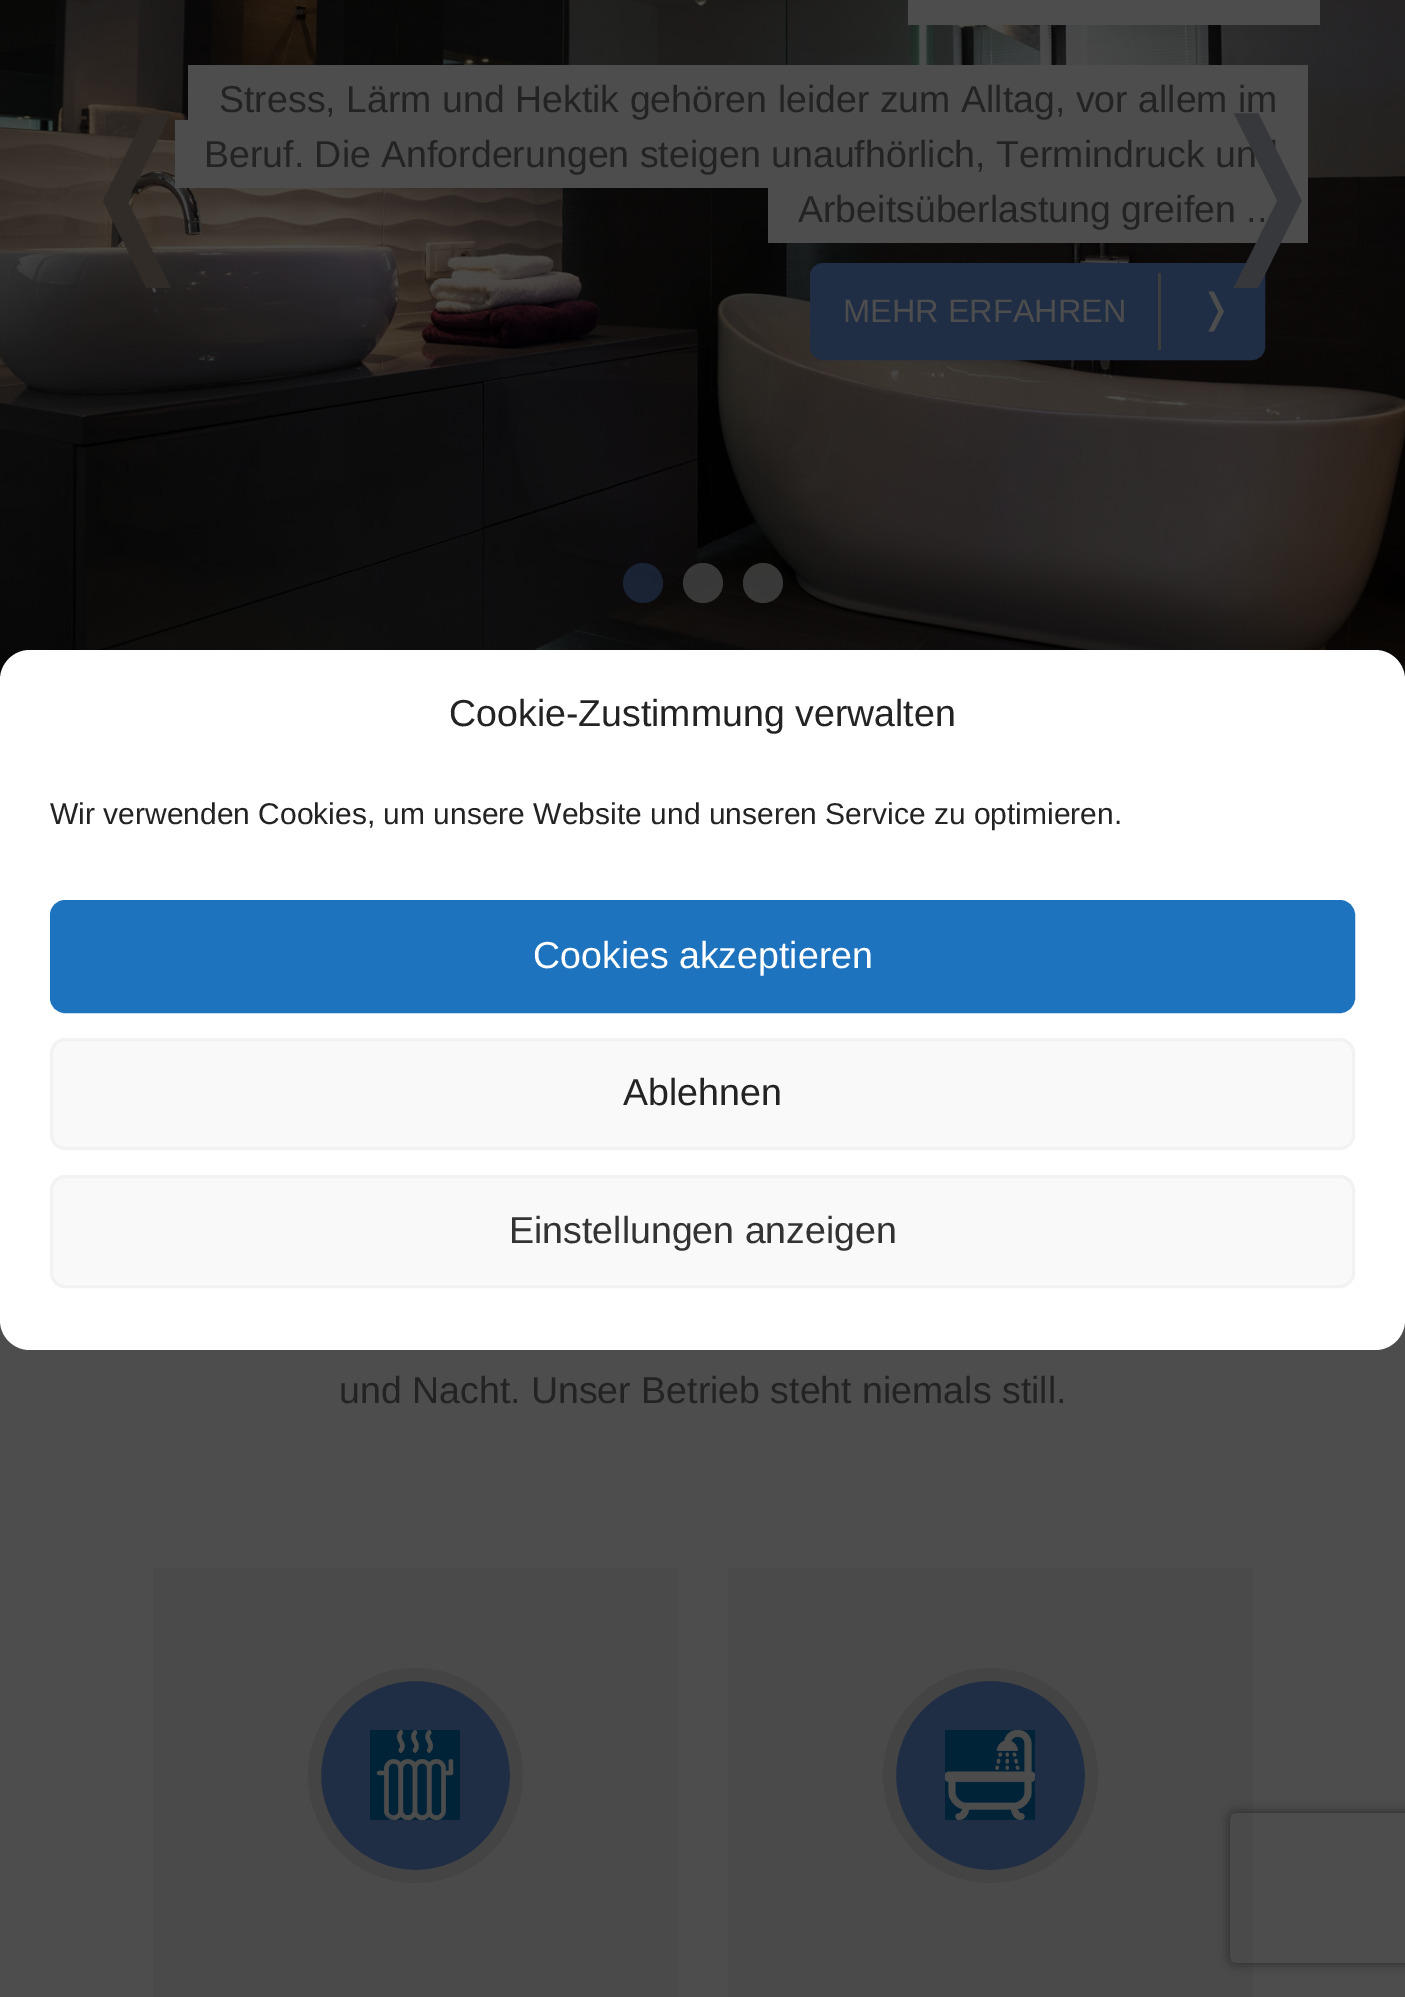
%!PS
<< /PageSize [1405 1997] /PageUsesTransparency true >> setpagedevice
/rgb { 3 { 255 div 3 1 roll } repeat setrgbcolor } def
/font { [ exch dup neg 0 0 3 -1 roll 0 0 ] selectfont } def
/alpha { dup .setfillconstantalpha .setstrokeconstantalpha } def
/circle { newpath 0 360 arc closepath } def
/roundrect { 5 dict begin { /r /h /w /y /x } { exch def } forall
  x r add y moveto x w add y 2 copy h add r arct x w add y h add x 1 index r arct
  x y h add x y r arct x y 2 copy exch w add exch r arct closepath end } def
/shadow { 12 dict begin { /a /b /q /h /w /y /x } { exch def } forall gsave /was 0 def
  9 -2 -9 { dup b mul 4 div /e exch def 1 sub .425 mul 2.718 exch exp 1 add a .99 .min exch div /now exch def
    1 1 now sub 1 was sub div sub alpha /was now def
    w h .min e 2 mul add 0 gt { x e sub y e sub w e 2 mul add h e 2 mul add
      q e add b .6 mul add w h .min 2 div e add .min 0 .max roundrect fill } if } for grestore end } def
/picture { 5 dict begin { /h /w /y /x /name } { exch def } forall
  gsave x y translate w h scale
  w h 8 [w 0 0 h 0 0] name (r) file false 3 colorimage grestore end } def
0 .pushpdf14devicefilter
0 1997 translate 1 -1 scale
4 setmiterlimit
77 77 77 rgb
0 0 1405 1997 rectfill
(img/1.rgb) 0 0 1405 680 picture
908 0 42 25 rectfill
950 0 370 25 rectfill
188 65 moveto 188 133 lineto 1248 133 lineto 1248 132 lineto 218 132 lineto 218 65 lineto closepath fill
248 132 moveto 248 133 lineto 1308 133 lineto 1308 65 lineto 1278 65 lineto 1278 132 lineto closepath fill
218 65 1060 55 rectfill
175 120 moveto 175 188 lineto 1248 188 lineto 205 188 lineto 205 120 lineto closepath fill
235 188 moveto 1308 188 lineto 1308 120 lineto 1278 120 lineto 1278 188 lineto closepath fill
205 120 1073 68 rectfill
768 175 moveto 768 243 lineto 1248 243 lineto 1248 242 lineto 798 242 lineto 798 175 lineto closepath fill
828 242 moveto 828 243 lineto 1308 243 lineto 1308 175 lineto 1278 175 lineto 1278 242 lineto closepath fill
798 188 480 54 rectfill
31 45 69 rgb
811.5 264.5 452 94 11.5 roundrect gsave fill grestore
3 setlinewidth
stroke
61 61 61 rgb
1158 273 3 77 rectfill
0.7 alpha
31 45 69 rgb
643 583 20 circle fill
77 77 77 rgb
703 583 20 circle fill
763 583 20 circle fill
1 alpha
74 74 74 rgb
153 1568 525 429 rectfill
31 45 69 rgb
415.5 1775.5 101 circle gsave fill grestore
68 68 68 rgb
13 setlinewidth
stroke
(img/2.rgb) 370 1730 90 90 picture
74 74 74 rgb
728 1568 525 429 rectfill
31 45 69 rgb
990.5 1775.5 101 circle gsave fill grestore
68 68 68 rgb
stroke
(img/3.rgb) 945 1730 90 90 picture
255 255 255 rgb
0 650 1405 700 30 roundrect fill
30 115 190 rgb
51.5 901.5 1302 110 13.5 roundrect gsave fill grestore
3 setlinewidth
stroke
249 249 249 rgb
51.5 1039.5 1302 109 13.5 roundrect gsave fill grestore
242 242 242 rgb
stroke
249 249 249 rgb
51.5 1176.5 1302 110 13.5 roundrect gsave fill grestore
242 242 242 rgb
stroke
gsave
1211 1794 moveto 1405 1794 lineto 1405 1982 lineto 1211 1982 lineto closepath 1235 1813 moveto 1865 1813 lineto 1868 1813 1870 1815 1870 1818 curveto 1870 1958 lineto 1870 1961 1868 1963 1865 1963 curveto 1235 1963 lineto 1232 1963 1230 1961 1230 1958 curveto 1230 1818 lineto 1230 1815 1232 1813 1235 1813 curveto closepath eoclip newpath
38 38 38 rgb
1230 1813 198 150 5 6 1 shadow
grestore
/DejaVuSans-Regular 175 font
49 44 40 rgb
65 246 moveto (❬) show
/LiberationSans-Regular 37.5 font
35 35 35 rgb
[
  [(Stress, Lärm und Hektik gehören leider zum Alltag, vor allem im) 219 112]
  [(Beruf. Die Anforderungen steigen unaufhörlich, Termindruck und) 204 167]
  [(Arbeitsüberlastung greifen ...) 798 222]
] { aload pop moveto show } forall
/LiberationSans-Regular 32.5 font
77 77 77 rgb
843 322 moveto (MEHR ERFAHREN) show
/DejaVuSans-Regular 40 font
1199 322 moveto (❭) show
/DejaVuSans-Regular 175 font
55 56 59 rgb
1193 246 moveto (❭) show
/LiberationSans-Regular 37.5 font
35 35 35 rgb
339 1403 moveto (und Nacht. Unser Betrieb steht niemals still.) show
449 726 moveto (Cookie-Zustimmung verwalten) show
/LiberationSans-Regular 30 font
50 824 moveto (Wir verwenden Cookies, um unsere Website und unseren Service zu optimieren.) show
/LiberationSans-Regular 37.5 font
255 255 255 rgb
533 968 moveto (Cookies akzeptieren) show
35 35 35 rgb
623 1105 moveto (Ablehnen) show
51 51 51 rgb
509 1243 moveto (Einstellungen anzeigen) show
.poppdf14devicefilter showpage
